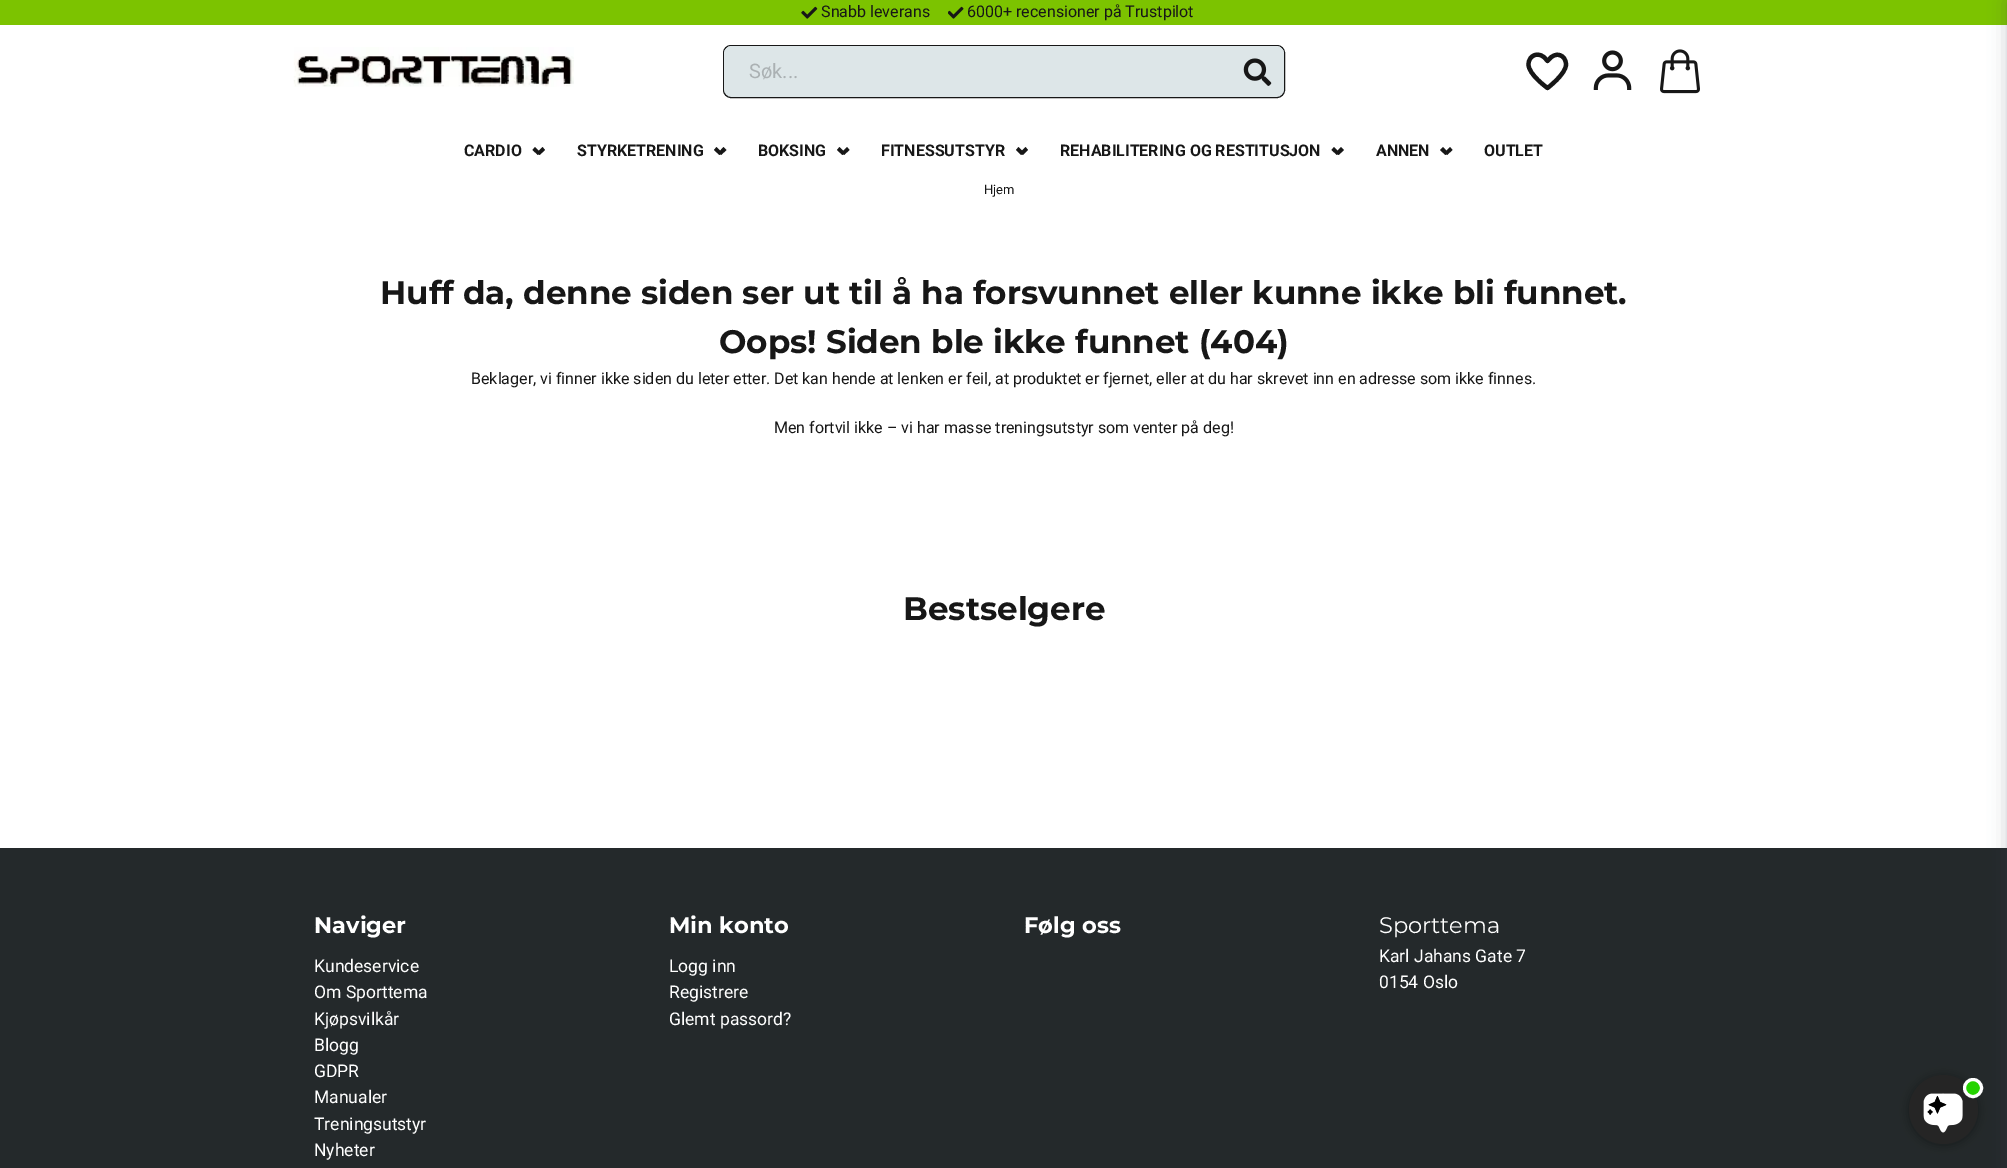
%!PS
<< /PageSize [2007 1168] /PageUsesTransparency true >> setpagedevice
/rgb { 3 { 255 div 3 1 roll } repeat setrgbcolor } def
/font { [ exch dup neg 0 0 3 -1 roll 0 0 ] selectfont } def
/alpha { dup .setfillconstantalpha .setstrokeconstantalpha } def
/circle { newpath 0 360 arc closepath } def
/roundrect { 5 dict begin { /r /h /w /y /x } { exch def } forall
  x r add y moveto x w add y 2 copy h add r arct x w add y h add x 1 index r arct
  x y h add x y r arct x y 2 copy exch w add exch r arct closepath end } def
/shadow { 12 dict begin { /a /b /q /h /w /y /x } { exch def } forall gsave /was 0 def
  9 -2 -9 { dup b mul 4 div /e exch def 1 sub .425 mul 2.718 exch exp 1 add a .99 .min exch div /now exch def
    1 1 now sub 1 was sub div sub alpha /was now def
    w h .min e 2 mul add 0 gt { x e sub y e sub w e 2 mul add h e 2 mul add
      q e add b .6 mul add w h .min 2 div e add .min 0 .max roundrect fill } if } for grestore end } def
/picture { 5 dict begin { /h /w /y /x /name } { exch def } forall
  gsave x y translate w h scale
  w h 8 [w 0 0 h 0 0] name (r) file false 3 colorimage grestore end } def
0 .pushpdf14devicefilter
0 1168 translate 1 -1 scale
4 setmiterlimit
255 255 255 rgb
0 0 2007 1168 rectfill
124 195 0 rgb
0 0 2007 25 rectfill
(img/1.rgb) 801 6 17 13 picture
(img/2.rgb) 948 6 16 13 picture
(img/3.rgb) 293 47 281 40 picture
221 230 232 rgb
723.5 45.5 561 52 7.5 roundrect gsave fill grestore
23 23 23 rgb
stroke
221 230 232 rgb
724 46 560 50 8 roundrect fill
(img/4.rgb) 1243 58 29 28 picture
23 23 23 rgb
4.2 setlinewidth
1 setlinecap
1 setlinejoin
1546.5 60 moveto 1540 50.5 1528.5 54.5 1528.5 64.5 curveto 1528.5 74.5 1547.5 88 1547.5 88 curveto 1547.5 88 1566 74 1566 64.5 curveto 1566 55 1555.5 50.5 1548.5 60 curveto 1547.5 61 lineto closepath stroke
(img/5.rgb) 1593 50 39 40 picture
(img/6.rgb) 1660 49 40 45 picture
537 152.5 moveto 542.5 147 lineto 545 150 lineto 539.5 155 lineto closepath fill
532.5 150 moveto 535 147 lineto 540.5 152.5 lineto 538 155 lineto closepath fill
718.5 152.5 moveto 723.5 147 lineto 726.5 150 lineto 721 155 lineto closepath fill
714 150 moveto 716.5 147 lineto 722 152.5 lineto 719.5 155 lineto closepath fill
841.5 152.5 moveto 847 147 lineto 849.5 150 lineto 844 155 lineto closepath fill
837 150 moveto 839.5 147 lineto 845 152.5 lineto 842.5 155 lineto closepath fill
1020 152.5 moveto 1025.5 147 lineto 1028 150 lineto 1023 155 lineto closepath fill
1016 150 moveto 1018.5 147 lineto 1024 152.5 lineto 1021 155 lineto closepath fill
1336 152.5 moveto 1341 147 lineto 1344 150 lineto 1338.5 155 lineto closepath fill
1331.5 150 moveto 1334 147 lineto 1339.5 152.5 lineto 1337 155 lineto closepath fill
1444.5 152.5 moveto 1450 147 lineto 1452.5 150 lineto 1447 155 lineto closepath fill
1440 150 moveto 1443 147 lineto 1448 152.5 lineto 1445.5 155 lineto closepath fill
36 41 43 rgb
0 848 2007 320 rectfill
0 0 0 rgb
1909 1076 69 69 34.5 4.5 0.35 shadow
37 37 37 rgb
1943.5 1109.5 34.5 circle fill
37 211 0 rgb
1973 1088 8.5 circle gsave fill grestore
255 255 255 rgb
3 setlinewidth
0 setlinecap
0 setlinejoin
stroke
60 66 87 rgb
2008 1 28 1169 0 9.5 0.3 shadow
(img/7.rgb) 1923 1093 40 40 picture
/Roboto-Regular 16 font
23 23 23 rgb
821 17 moveto (Snabb leverans) show
967 17 moveto (6000+ recensioner på Trustpilot) show
/Roboto-Regular 20 font
171 177 179 rgb
749 78 moveto (Søk...) show
/Roboto-Bold 16 font
23 23 23 rgb
[
  [(CARDIO) 464 156]
  [(STYRKETRENING) 577 156]
  [(BOKSING) 758 156]
  [(FITNESSUTSTYR) 881 156]
  [(REHABILITERING OG RESTITUSJON) 1060 156]
  [(ANNEN) 1376 156]
  [(OUTLET) 1484 156]
] { aload pop moveto show } forall
/Roboto-Regular 13 font
984 194 moveto (Hjem) show
/Montserrat-Bold 32.5 font
380 304 moveto (Huff da, denne siden ser ut til å ha forsvunnet eller kunne ikke bli funnet.) show
719 353 moveto (Oops! Siden ble ikke funnet \(404\)) show
/Roboto-Regular 16 font
471 384 moveto (Beklager, vi finner ikke siden du leter etter. Det kan hende at lenken er feil, at produktet er fjernet, eller at du har skrevet inn en adresse som ikke finnes.) show
774 433 moveto (Men fortvil ikke – vi har masse treningsutstyr som venter på deg!) show
/Montserrat-Bold 32.5 font
903 620 moveto (Bestselgere) show
/Montserrat-Bold 22.5 font
255 255 255 rgb
314 933 moveto (Naviger) show
/Roboto-Regular 17.5 font
[
  [(Kundeservice) 314 972]
  [(Om Sporttema) 314 998]
  [(Kjøpsvilkår) 314 1025]
  [(Blogg) 314 1051]
  [(GDPR) 314 1077]
  [(Manualer) 314 1103]
  [(Treningsutstyr) 314 1130]
  [(Nyheter) 314 1156]
] { aload pop moveto show } forall
/Montserrat-Bold 22.5 font
669 933 moveto (Min konto) show
/Roboto-Regular 17.5 font
[
  [(Logg inn) 669 972]
  [(Registrere) 669 998]
  [(Glemt passord?) 669 1025]
] { aload pop moveto show } forall
/Montserrat-Bold 22.5 font
1024 933 moveto (Følg oss) show
/Montserrat-Regular 22.5 font
1379 933 moveto (Sporttema) show
/Roboto-Regular 17.5 font
1379 962 moveto (Karl Jahans Gate 7) show
1379 988 moveto (0154 Oslo) show
.poppdf14devicefilter showpage
